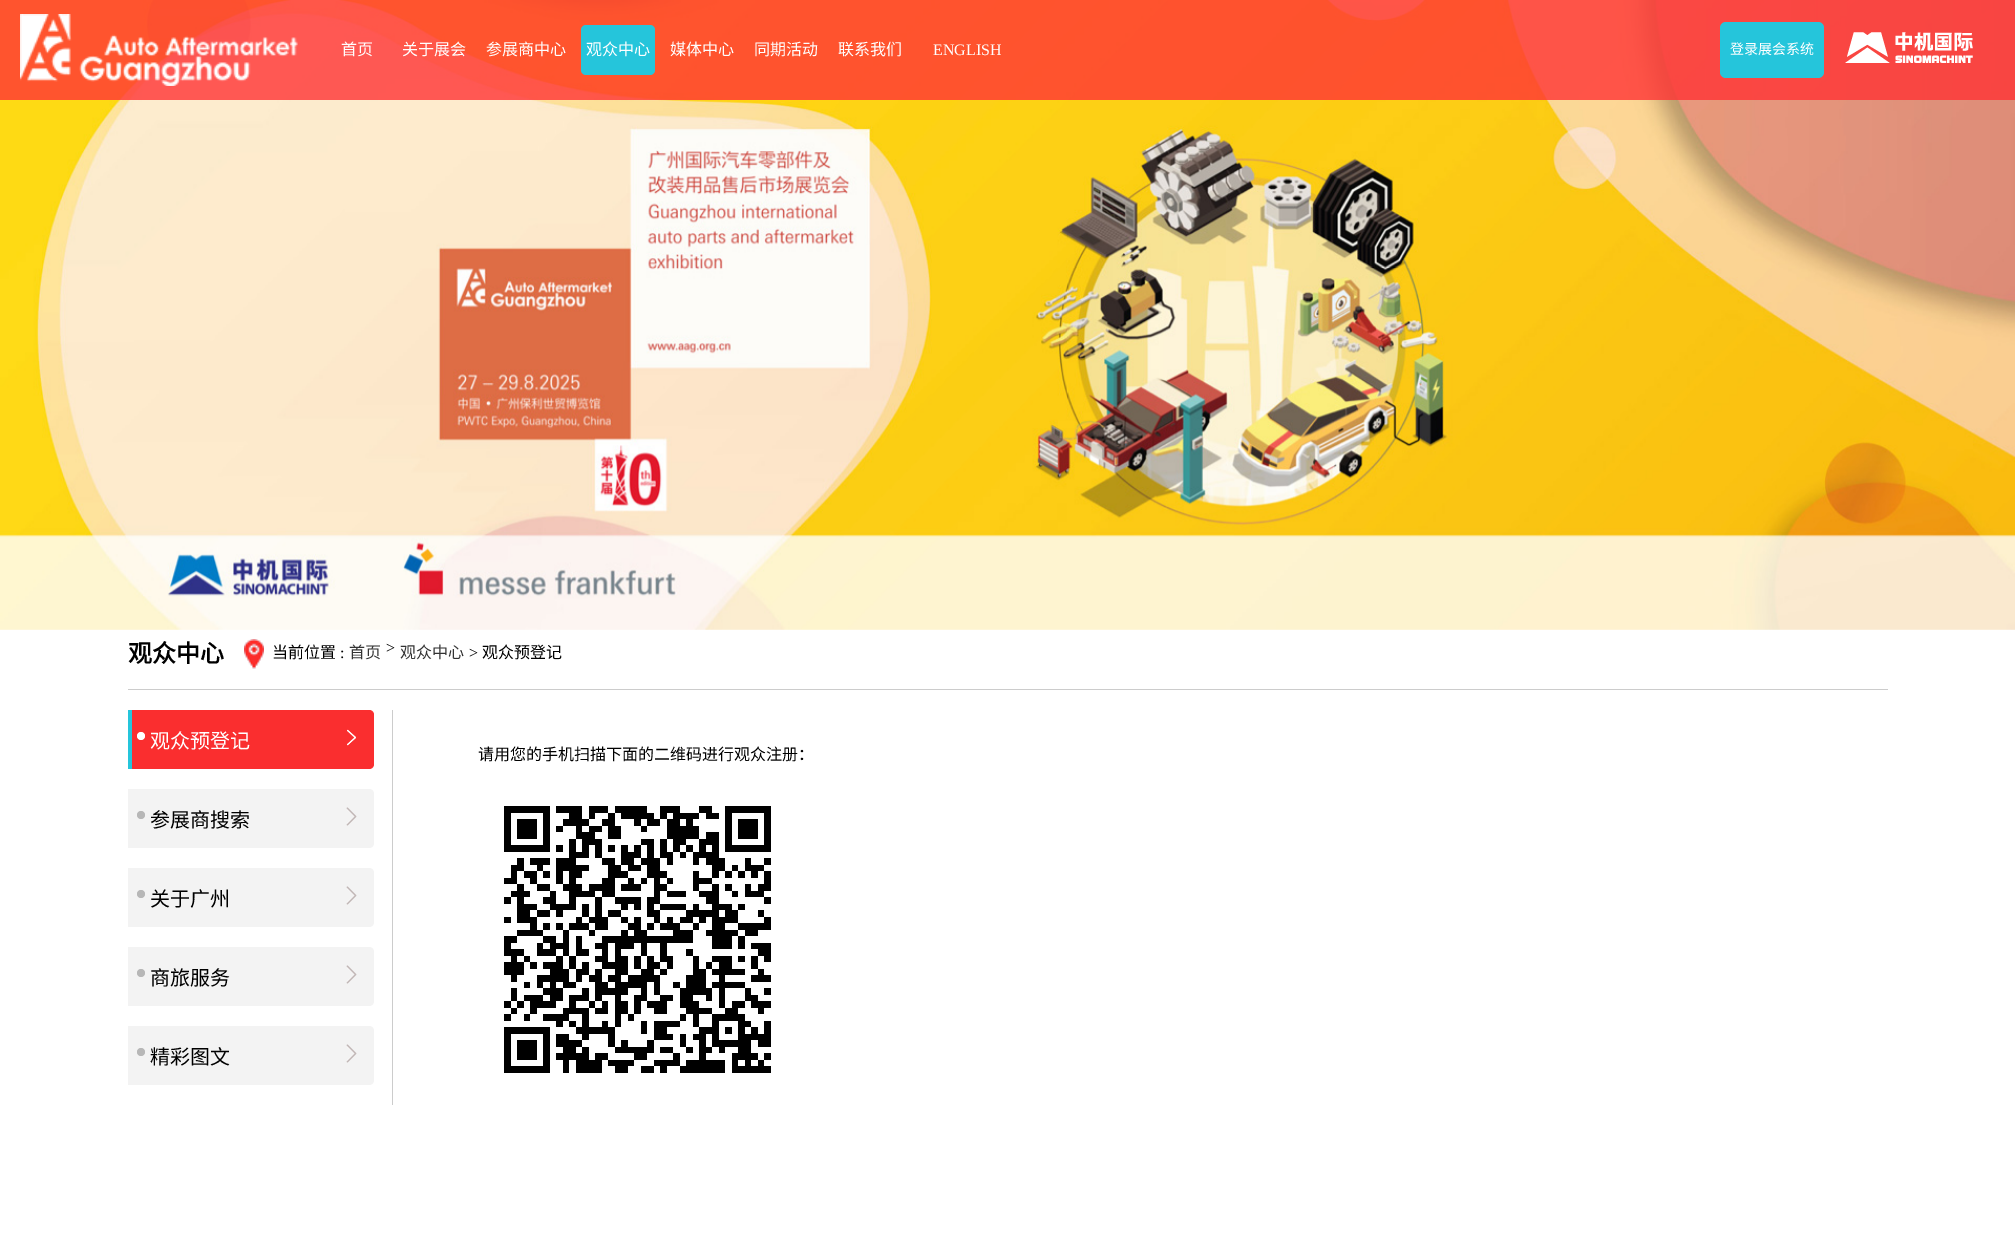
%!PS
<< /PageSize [2015 1249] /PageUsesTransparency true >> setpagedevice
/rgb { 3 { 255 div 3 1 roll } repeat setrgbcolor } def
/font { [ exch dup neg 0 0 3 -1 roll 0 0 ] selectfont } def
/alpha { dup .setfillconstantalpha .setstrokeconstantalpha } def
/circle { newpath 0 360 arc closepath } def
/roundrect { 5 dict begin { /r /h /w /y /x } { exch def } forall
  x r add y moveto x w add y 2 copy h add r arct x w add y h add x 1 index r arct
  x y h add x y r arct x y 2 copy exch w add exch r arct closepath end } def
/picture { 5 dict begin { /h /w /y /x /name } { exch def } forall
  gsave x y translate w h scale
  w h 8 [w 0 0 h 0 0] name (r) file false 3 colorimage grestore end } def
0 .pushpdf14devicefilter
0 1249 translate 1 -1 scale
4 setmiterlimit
255 255 255 rgb
0 0 2015 1249 rectfill
(img/1.rgb) 0 0 2015 630 picture
0.8 alpha
255 51 52 rgb
0 0 2015 100 rectfill
1 alpha
(img/2.rgb) 20 14 278 72 picture
37 197 219 rgb
581 25 74 50 5 roundrect fill
1720 22 104 56 6 roundrect fill
(img/3.rgb) 1845 32 128 31 picture
204 204 204 rgb
128 689 1760 1 rectfill
(img/4.rgb) 244 639 20 30 picture
392 710 1 395 rectfill
250 46 47 rgb
128 710 moveto 369 710 lineto 372 710 374 712 374 715 curveto 374 764 lineto 374 767 372 769 369 769 curveto 128 769 lineto closepath fill
37 197 219 rgb
128 710 4 59 rectfill
255 255 255 rgb
141 736 4 circle fill
(img/5.rgb) 347 729 9 17 picture
243 243 243 rgb
128 789 moveto 369 789 lineto 372 789 374 791 374 794 curveto 374 843 lineto 374 846 372 848 369 848 curveto 128 848 lineto closepath fill
(img/7.rgb) 347 809 9 15 picture
(img/6.rgb) 346 807 11 19 picture
183 183 183 rgb
141 815 4 circle fill
243 243 243 rgb
128 868 moveto 369 868 lineto 372 868 374 870 374 873 curveto 374 922 lineto 374 925 372 927 369 927 curveto 128 927 lineto closepath fill
(img/7.rgb) 347 888 9 15 picture
(img/6.rgb) 346 886 11 19 picture
183 183 183 rgb
141 894 4 circle fill
243 243 243 rgb
128 947 moveto 369 947 lineto 372 947 374 949 374 952 curveto 374 1001 lineto 374 1004 372 1006 369 1006 curveto 128 1006 lineto closepath fill
(img/7.rgb) 347 967 9 15 picture
(img/6.rgb) 346 965 11 19 picture
183 183 183 rgb
141 973 4 circle fill
243 243 243 rgb
128 1026 moveto 369 1026 lineto 372 1026 374 1028 374 1031 curveto 374 1080 lineto 374 1083 372 1085 369 1085 curveto 128 1085 lineto closepath fill
(img/7.rgb) 347 1046 9 15 picture
(img/6.rgb) 346 1044 11 19 picture
183 183 183 rgb
141 1052 4 circle fill
(img/8.rgb) 504 806 267 267 picture
/NotoSansCJKSC-Regular 16 font
255 255 255 rgb
[
  [(首页) 341 55]
  [(关于展会) 402 55]
  [(参展商中心) 486 55]
  [(观众中心) 586 55]
  [(媒体中心) 670 55]
  [(同期活动) 754 55]
  [(联系我们) 838 55]
] { aload pop moveto show } forall
/LiberationSerif-Regular 16 font
933 55 moveto (ENGLISH) show
/NotoSansCJKSC-Regular 14 font
1730 54 moveto (登录展会系统) show
/NotoSansCJKSC-Bold 24 font
0 0 0 rgb
128 662 moveto (观众中心) show
/NotoSansCJKSC-Regular 16 font
272 658 moveto (当前位置) show
/LiberationSerif-Regular 16 font
340 658 moveto (:) show
/NotoSansCJKSC-Regular 16 font
51 51 51 rgb
349 658 moveto (首页) show
/LiberationSerif-Regular 16 font
0 0 0 rgb
386 653 moveto (>) show
/NotoSansCJKSC-Regular 16 font
51 51 51 rgb
400 658 moveto (观众中心) show
/LiberationSerif-Regular 16 font
0 0 0 rgb
469 658 moveto (>) show
/NotoSansCJKSC-Regular 16 font
482 658 moveto (观众预登记) show
/NotoSansCJKSC-Regular 20 font
255 255 255 rgb
150 748 moveto (观众预登记) show
0 0 0 rgb
[
  [(参展商搜索) 150 827]
  [(关于广州) 150 906]
  [(商旅服务) 150 985]
  [(精彩图文) 150 1064]
] { aload pop moveto show } forall
/NotoSansCJKSC-Regular 16 font
478 760 moveto (请用您的手机扫描下面的二维码进行观众注册：) show
.poppdf14devicefilter showpage
